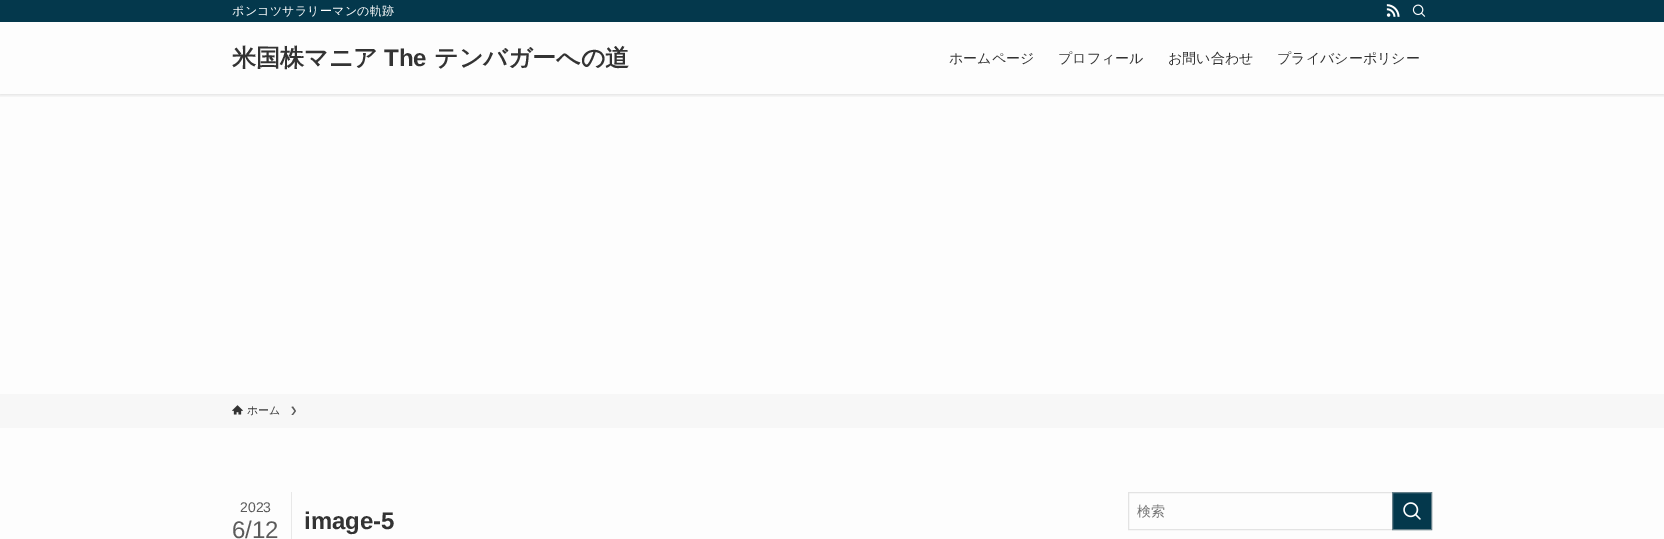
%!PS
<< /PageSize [1664 539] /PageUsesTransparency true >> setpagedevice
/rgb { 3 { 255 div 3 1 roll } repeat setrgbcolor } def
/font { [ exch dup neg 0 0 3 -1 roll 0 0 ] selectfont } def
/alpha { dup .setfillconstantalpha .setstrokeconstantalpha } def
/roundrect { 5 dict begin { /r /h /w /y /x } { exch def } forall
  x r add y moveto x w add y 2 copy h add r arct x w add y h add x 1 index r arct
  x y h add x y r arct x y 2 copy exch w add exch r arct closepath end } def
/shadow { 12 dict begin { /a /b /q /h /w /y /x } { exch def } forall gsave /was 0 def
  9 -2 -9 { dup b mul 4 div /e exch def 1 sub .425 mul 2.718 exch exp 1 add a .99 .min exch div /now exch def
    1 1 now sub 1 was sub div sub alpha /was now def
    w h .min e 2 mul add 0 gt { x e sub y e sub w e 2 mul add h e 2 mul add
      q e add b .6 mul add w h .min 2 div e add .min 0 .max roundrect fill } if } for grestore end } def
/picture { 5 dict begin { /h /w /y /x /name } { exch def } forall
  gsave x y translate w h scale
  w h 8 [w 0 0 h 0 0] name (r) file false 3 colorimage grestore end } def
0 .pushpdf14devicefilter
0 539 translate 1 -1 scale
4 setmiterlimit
253 253 253 rgb
0 0 1664 539 rectfill
gsave
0 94 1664 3 rectclip
0 0 0 rgb
0 1 1664 94 0 2 0.12 shadow
grestore
4 56 76 rgb
0 0 1664 22 rectfill
(img/1.rgb) 1386 4 14 13 picture
(img/2.rgb) 1412 4 14 13 picture
247 247 247 rgb
0 394 1664 34 rectfill
(img/3.rgb) 232 405 11 10 picture
90 90 90 rgb
293 406.5 moveto 291.5 407 lineto 294.5 411 lineto 291.5 415 lineto 293 415 lineto 296 411 lineto closepath fill
232 232 232 rgb
291 492 1 47 rectfill
227 227 227 rgb
1128.5 492.5 303 37 rectstroke
4 56 76 rgb
1392.5 492.5 moveto 1431.5 492.5 lineto 1431.5 529.5 lineto 1392.5 529.5 lineto closepath gsave fill grestore
102 128 138 rgb
stroke
(img/4.rgb) 1403 502 18 18 picture
/WenQuanYiZenHei-Medium 12 font
255 255 255 rgb
232 15 moveto 0.25 0 (ポンコツサラリーマンの軌跡) ashow
/WenQuanYiZenHei-Bold 24 font
51 51 51 rgb
232 66 moveto (米国株マニア) show
/LiberationSans-Bold 24 font
384 66 moveto (The) show
/WenQuanYiZenHei-Bold 24 font
434 66 moveto (テンバガーへの道) show
/WenQuanYiZenHei-Medium 14 font
[
  [(ホームページ) 949 63]
  [(プロフィール) 1058 63]
  [(お問い合わせ) 1168 63]
  [(プライバシーポリシー) 1277 63]
] { aload pop moveto show } forall
/WenQuanYiZenHei-Medium 11 font
247 414 moveto (ホーム) show
/LiberationSans-Regular 14 font
91 91 91 rgb
240 512 moveto (2023) show
/LiberationSans-Regular 24 font
232 538 moveto (6/12) show
/LiberationSans-Bold 24 font
51 51 51 rgb
304 529 moveto (image-5) show
/WenQuanYiZenHei-Medium 14 font
117 117 117 rgb
1137 516 moveto (検索) show
.poppdf14devicefilter showpage
